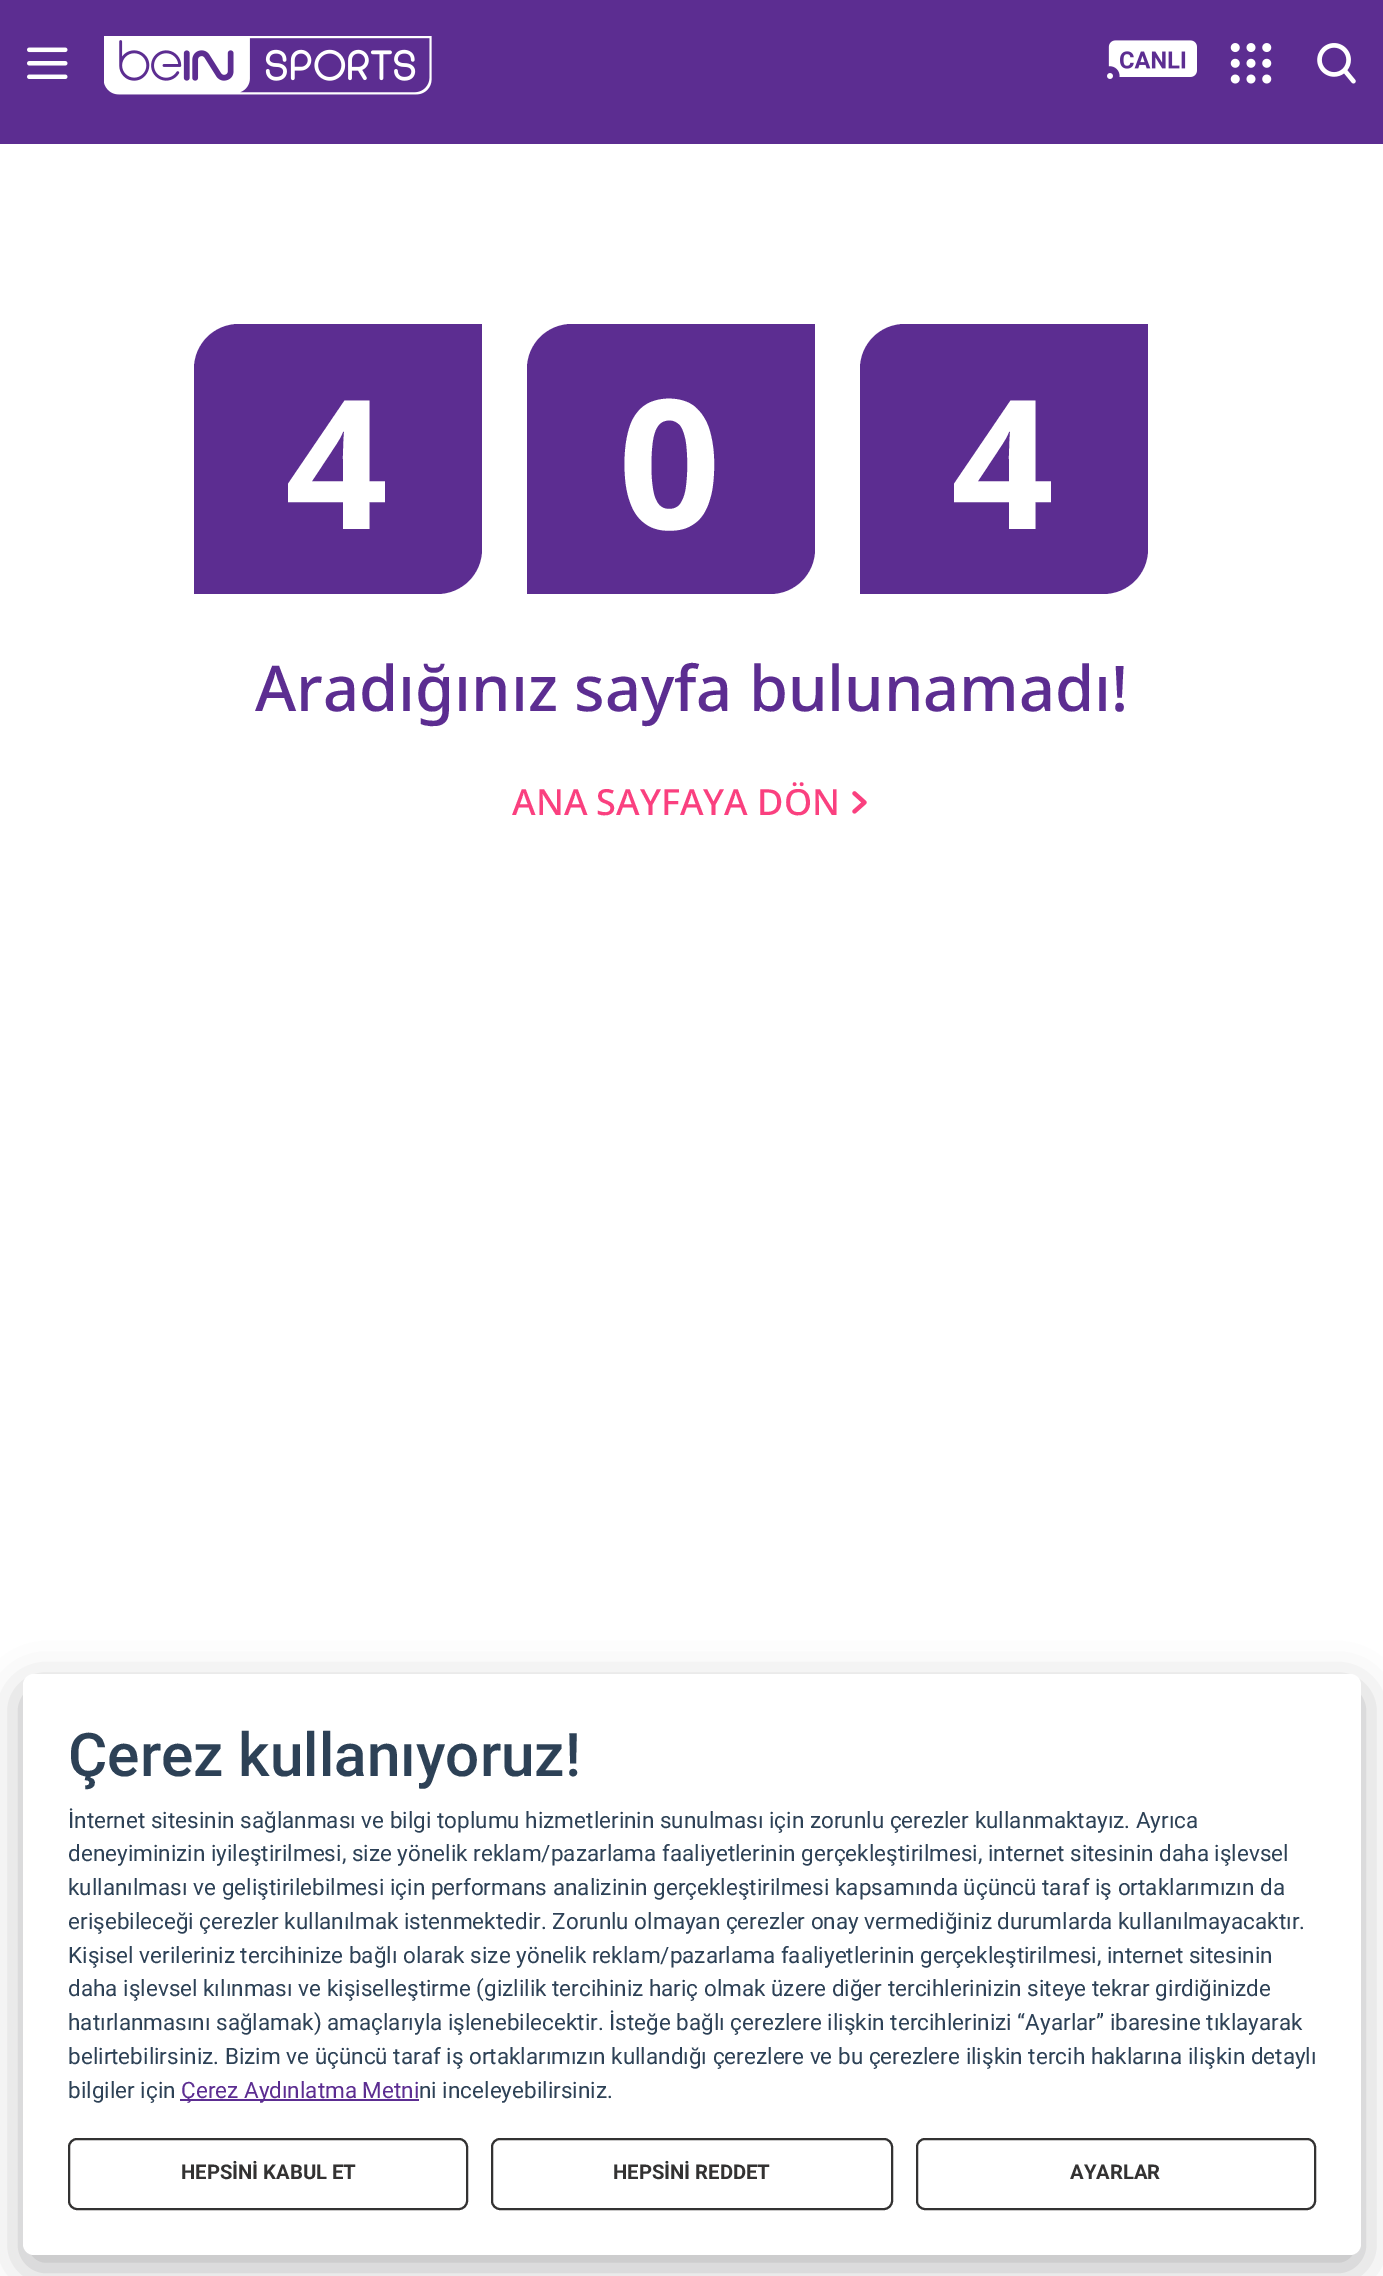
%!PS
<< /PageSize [1383 2276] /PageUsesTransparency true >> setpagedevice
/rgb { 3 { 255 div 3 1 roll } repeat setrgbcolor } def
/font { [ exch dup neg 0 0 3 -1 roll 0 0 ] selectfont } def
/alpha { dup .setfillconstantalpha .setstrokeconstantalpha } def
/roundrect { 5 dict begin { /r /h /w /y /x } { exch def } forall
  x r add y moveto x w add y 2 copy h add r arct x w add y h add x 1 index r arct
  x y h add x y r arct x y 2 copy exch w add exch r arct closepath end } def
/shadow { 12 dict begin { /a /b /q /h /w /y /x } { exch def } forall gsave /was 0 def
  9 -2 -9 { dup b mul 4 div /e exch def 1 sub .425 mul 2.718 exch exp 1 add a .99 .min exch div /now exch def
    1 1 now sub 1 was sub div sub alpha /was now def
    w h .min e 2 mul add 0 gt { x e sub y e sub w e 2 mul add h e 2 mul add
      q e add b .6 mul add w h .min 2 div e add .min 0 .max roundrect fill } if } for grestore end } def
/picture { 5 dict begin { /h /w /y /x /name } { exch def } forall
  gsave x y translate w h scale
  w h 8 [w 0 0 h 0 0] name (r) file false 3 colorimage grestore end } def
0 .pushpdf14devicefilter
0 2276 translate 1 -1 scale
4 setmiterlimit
255 255 255 rgb
0 0 1383 2276 rectfill
92 45 145 rgb
0 0 1383 144 rectfill
(img/1.rgb) 27 47 41 32 picture
(img/2.rgb) 104 36 328 59 picture
(img/3.rgb) 1107 40 90 39 picture
(img/4.rgb) 1230 43 42 41 picture
(img/5.rgb) 1317 43 39 41 picture
239 324 moveto 482 324 lineto 482 549 lineto 482 574 462 594 437 594 curveto 194 594 lineto 194 369 lineto 194 344 214 324 239 324 curveto closepath fill
572 324 moveto 815 324 lineto 815 549 lineto 815 574 795 594 770 594 curveto 527 594 lineto 527 369 lineto 527 344 547 324 572 324 curveto closepath fill
905 324 moveto 1148 324 lineto 1148 549 lineto 1148 574 1128 594 1103 594 curveto 860 594 lineto 860 369 lineto 860 344 880 324 905 324 curveto closepath fill
(img/6.rgb) 852 791 15 23 picture
2 2 3 rgb
23 1688 1338 580 11 21 0.28 shadow
255 255 255 rgb
23 1674 1338 581 11 roundrect fill
92 45 145 rgb
180 2099 239 2 rectfill
51 50 50 rgb
2 setlinewidth
69 2139 398 70 8 roundrect stroke
492 2139 400 70 8 roundrect stroke
917 2139 398 70 8 roundrect stroke
/NotoSans-Bold 180 font
255 255 255 rgb
[
  [(4) 285 529]
  [(0) 618 529]
  [(4) 951 529]
] { aload pop moveto show } forall
/NotoSans-Medium 63 font
92 45 145 rgb
255 711 moveto (Aradığınız sayfa bulunamadı!) show
/NotoSans-Medium 36 font
250 64 127 rgb
512 815 moveto (ANA SAYFAYA DÖN) show
/Roboto-Medium 60.25 font
45 65 86 rgb
68 1776 moveto (Çerez kullanıyoruz!) show
/Roboto-Regular 22.5 font
[
  [(İnternet sitesinin sağlanması ve bilgi toplumu hizmetlerinin sunulması için zorunlu çerezler kullanmaktayız. Ayrıca) 68 1828]
  [(deneyiminizin iyileştirilmesi, size yönelik reklam/pazarlama faaliyetlerinin gerçekleştirilmesi, internet sitesinin daha işlevsel) 68 1861]
  [(kullanılması ve geliştirilebilmesi için performans analizinin gerçekleştirilmesi kapsamında üçüncü taraf iş ortaklarımızın da) 68 1895]
  [(erişebileceği çerezler kullanılmak istenmektedir. Zorunlu olmayan çerezler onay vermediğiniz durumlarda kullanılmayacaktır.) 68 1929]
  [(Kişisel verileriniz tercihinize bağlı olarak size yönelik reklam/pazarlama faaliyetlerinin gerçekleştirilmesi, internet sitesinin) 68 1963]
  [(daha işlevsel kılınması ve kişiselleştirme \(gizlilik tercihiniz hariç olmak üzere diğer tercihlerinizin siteye tekrar girdiğinizde) 68 1996]
  [(hatırlanmasını sağlamak\) amaçlarıyla işlenebilecektir. İsteğe bağlı çerezlere ilişkin tercihlerinizi “Ayarlar” ibaresine tıklayarak) 68 2030]
  [(belirtebilirsiniz. Bizim ve üçüncü taraf iş ortaklarımızın kullandığı çerezlere ve bu çerezlere ilişkin tercih haklarına ilişkin detaylı) 68 2064]
  [(bilgiler için) 68 2098]
] { aload pop moveto show } forall
92 45 145 rgb
181 2098 moveto (Çerez Aydınlatma Metni) show
45 65 86 rgb
419 2098 moveto (ni inceleyebilirsiniz.) show
/Roboto-Bold 20.25 font
51 50 50 rgb
[
  [(HEPSİNİ KABUL ET) 181 2179]
  [(HEPSİNİ REDDET) 613 2179]
  [(AYARLAR) 1070 2179]
] { aload pop moveto show } forall
.poppdf14devicefilter showpage
